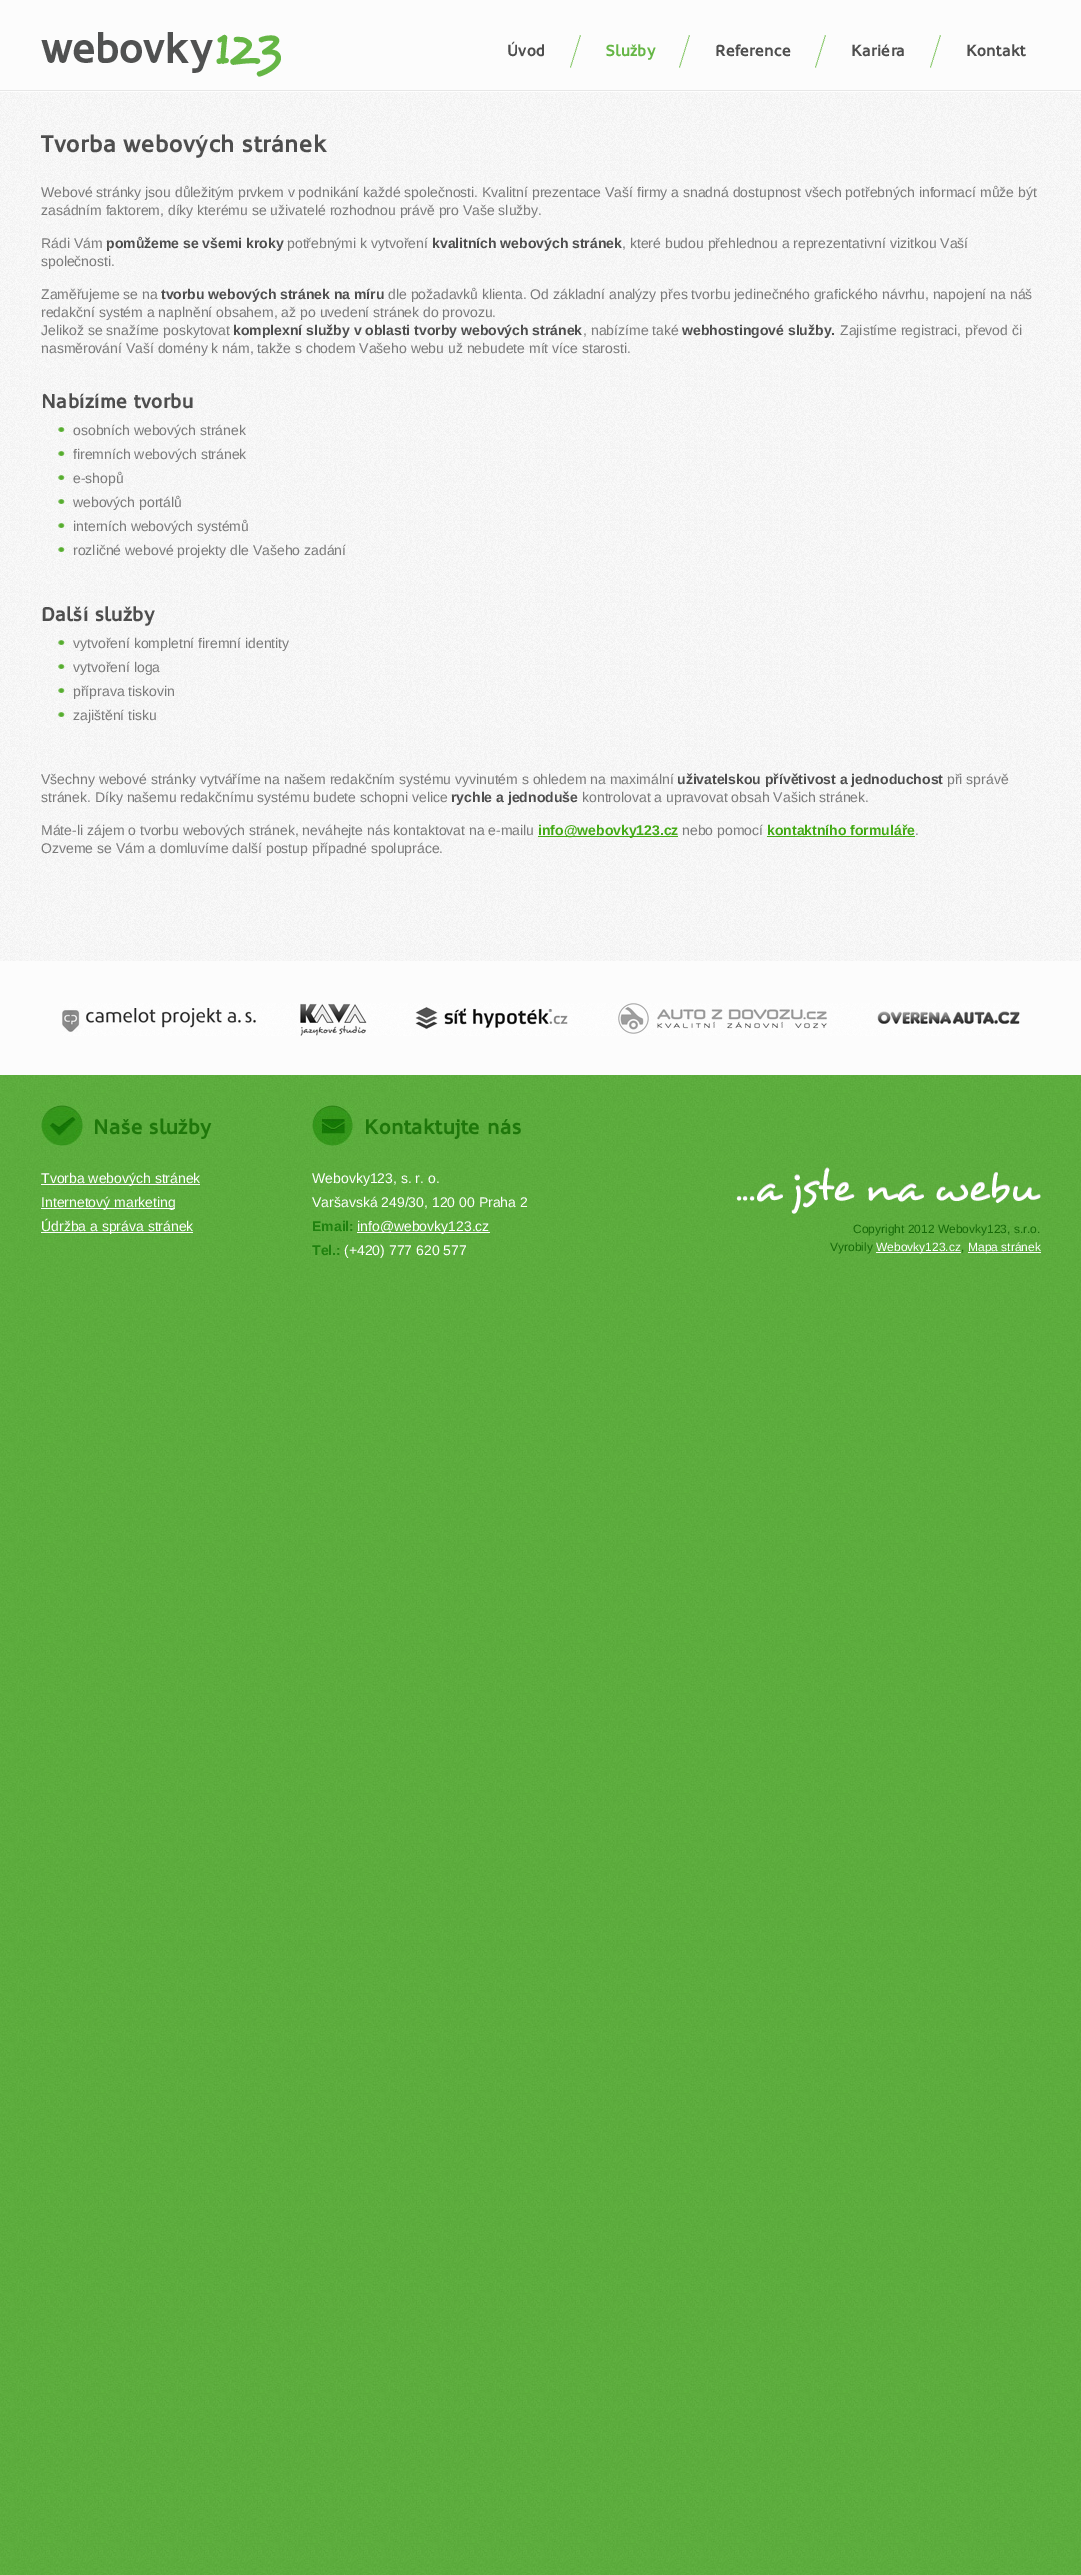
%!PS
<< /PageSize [1081 2575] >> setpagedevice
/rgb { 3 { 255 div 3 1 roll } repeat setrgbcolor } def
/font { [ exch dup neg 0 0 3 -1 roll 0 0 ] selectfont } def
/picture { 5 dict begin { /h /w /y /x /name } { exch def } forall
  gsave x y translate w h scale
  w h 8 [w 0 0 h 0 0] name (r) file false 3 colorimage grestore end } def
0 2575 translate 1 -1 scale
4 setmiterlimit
255 255 255 rgb
0 0 1081 2575 rectfill
(img/1.rgb) 0 1075 1081 1500 picture
252 252 252 rgb
0 0 1081 90 rectfill
(img/2.rgb) 41 32 240 45 picture
(img/3.rgb) 570 35 11 33 picture
(img/3.rgb) 679 35 11 33 picture
(img/3.rgb) 815 35 11 33 picture
(img/3.rgb) 930 35 11 33 picture
(img/4.rgb) 0 92 1081 869 picture
(img/5.rgb) 0 90 1081 2 picture
(img/6.rgb) 58 427 7 5 picture
(img/7.rgb) 58 451 7 5 picture
(img/8.rgb) 58 475 7 5 picture
(img/6.rgb) 58 499 7 5 picture
(img/7.rgb) 58 523 7 5 picture
(img/8.rgb) 58 547 7 5 picture
(img/9.rgb) 58 640 7 5 picture
(img/10.rgb) 58 664 7 5 picture
(img/11.rgb) 58 688 7 5 picture
(img/9.rgb) 58 712 7 5 picture
[
  [538 836 140 1 67 170 21]
  [767 836 148 1 67 170 21]
  [0 961 1081 114 252 252 252]
] { aload pop rgb rectfill } forall
(img/12.rgb) 62 1003 958 33 picture
(img/13.rgb) 41 1105 42 41 picture
(img/14.rgb) 41 1175 6 5 picture
255 255 255 rgb
41 1184 159 1 rectfill
(img/15.rgb) 41 1199 6 5 picture
41 1208 134 1 rectfill
(img/16.rgb) 41 1223 6 5 picture
41 1232 152 1 rectfill
(img/17.rgb) 312 1105 41 41 picture
357 1232 133 1 rectfill
(img/18.rgb) 736 1167 305 47 picture
876 1252 85 1 rectfill
968 1252 73 1 rectfill
/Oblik-Bold 16 font
78 78 78 rgb
507 56 moveto (Úvod) show
101 182 69 rgb
606 56 moveto (Služby) show
78 78 78 rgb
[
  [(Reference) 715 56]
  [(Kariéra) 851 56]
  [(Kontakt) 966 56]
] { aload pop moveto show } forall
/Oblik-Bold 24 font
41 152 moveto (Tvorba webových stránek) show
/LiberationSans-Regular 14 font
122 122 122 rgb
[
  [(Webové stránky jsou důležitým prvkem v podnikání každé společnosti. Kvalitní prezentace Vaší firmy a snadná dostupnost všech potřebných informací může být) 41 197]
  [(zasádním faktorem, díky kterému se uživatelé rozhodnou právě pro Vaše služby.) 41 215]
  [(Rádi Vám) 41 248]
] { aload pop moveto show } forall
/LiberationSans-Bold 14 font
78 78 78 rgb
106 248 moveto (pomůžeme se všemi kroky) show
/LiberationSans-Regular 14 font
122 122 122 rgb
287 248 moveto (potřebnými k vytvoření) show
/LiberationSans-Bold 14 font
78 78 78 rgb
432 248 moveto (kvalitních webových stránek) show
/LiberationSans-Regular 14 font
122 122 122 rgb
[
  [(, které budou přehlednou a reprezentativní vizitkou Vaší) 622 248]
  [(společnosti.) 41 266]
  [(Zaměřujeme se na) 41 299]
] { aload pop moveto show } forall
/LiberationSans-Bold 14 font
78 78 78 rgb
161 299 moveto (tvorbu webových stránek na míru) show
/LiberationSans-Regular 14 font
122 122 122 rgb
[
  [(dle požadavků klienta. Od základní analýzy přes tvorbu jedinečného grafického návrhu, napojení na náš) 388 299]
  [(redakční systém a naplnění obsahem, až po uvedení stránek do provozu.) 41 317]
  [(Jelikož se snažíme poskytovat) 41 335]
] { aload pop moveto show } forall
/LiberationSans-Bold 14 font
78 78 78 rgb
233 335 moveto (komplexní služby v oblasti tvorby webových stránek) show
/LiberationSans-Regular 14 font
122 122 122 rgb
583 335 moveto (, nabízíme také) show
/LiberationSans-Bold 14 font
78 78 78 rgb
682 335 moveto (webhostingové služby.) show
/LiberationSans-Regular 14 font
122 122 122 rgb
840 335 moveto (Zajistíme registraci, převod či) show
41 353 moveto (nasměrování Vaší domény k nám, takže s chodem Vašeho webu už nebudete mít více starosti.) show
/Oblik-Bold 20 font
78 78 78 rgb
41 408 moveto (Nabízíme tvorbu) show
/LiberationSans-Regular 14 font
122 122 122 rgb
[
  [(osobních webových stránek) 73 435]
  [(firemních webových stránek) 73 459]
  [(e-shopů) 73 483]
  [(webových portálů) 73 507]
  [(interních webových systémů) 73 531]
  [(rozličné webové projekty dle Vašeho zadání) 73 555]
] { aload pop moveto show } forall
/Oblik-Bold 20 font
78 78 78 rgb
41 621 moveto (Další služby) show
/LiberationSans-Regular 14 font
122 122 122 rgb
[
  [(vytvoření kompletní firemní identity) 73 648]
  [(vytvoření loga) 73 672]
  [(příprava tiskovin) 73 696]
  [(zajištění tisku) 73 720]
  [(Všechny webové stránky vytváříme na našem redakčním systému vyvinutém s ohledem na maximální) 41 784]
] { aload pop moveto show } forall
/LiberationSans-Bold 14 font
78 78 78 rgb
677 784 moveto (uživatelskou přívětivost a jednoduchost) show
/LiberationSans-Regular 14 font
122 122 122 rgb
947 784 moveto (při správě) show
41 802 moveto (stránek. Díky našemu redakčnímu systému budete schopni velice) show
/LiberationSans-Bold 14 font
78 78 78 rgb
451 802 moveto (rychle a jednoduše) show
/LiberationSans-Regular 14 font
122 122 122 rgb
582 802 moveto (kontrolovat a upravovat obsah Vašich stránek.) show
41 835 moveto (Máte-li zájem o tvorbu webových stránek, neváhejte nás kontaktovat na e-mailu) show
/LiberationSans-Bold 14 font
67 170 21 rgb
538 835 moveto (info@webovky123.cz) show
/LiberationSans-Regular 14 font
122 122 122 rgb
682 835 moveto (nebo pomocí) show
/LiberationSans-Bold 14 font
67 170 21 rgb
767 835 moveto (kontaktního formuláře) show
/LiberationSans-Regular 14 font
122 122 122 rgb
915 835 moveto (.) show
41 853 moveto (Ozveme se Vám a domluvíme další postup případné spolupráce.) show
/Oblik-Bold 21 font
31 119 11 rgb
93 1134 moveto (Naše služby) show
/LiberationSans-Regular 14 font
255 255 255 rgb
[
  [(Tvorba webových stránek) 41 1183]
  [(Internetový marketing) 41 1207]
  [(Údržba a správa stránek) 41 1231]
] { aload pop moveto show } forall
/Oblik-Bold 21 font
31 119 11 rgb
364 1134 moveto (Kontaktujte nás) show
/LiberationSans-Regular 14 font
255 255 255 rgb
312 1183 moveto (Webovky123, s. r. o.) show
312 1207 moveto (Varšavská 249/30, 120 00 Praha 2) show
/LiberationSans-Bold 14 font
31 129 14 rgb
312 1231 moveto (Email:) show
/LiberationSans-Regular 14 font
255 255 255 rgb
357 1231 moveto (info@webovky123.cz) show
/LiberationSans-Bold 14 font
31 129 14 rgb
312 1255 moveto (Tel.:) show
/LiberationSans-Regular 14 font
255 255 255 rgb
344 1255 moveto (\(+420\) 777 620 577) show
/LiberationSans-Regular 12 font
22 106 8 rgb
853 1233 moveto (Copyright 2012 Webovky123, s.r.o.) show
830 1251 moveto (Vyrobily) show
255 255 255 rgb
876 1251 moveto (Webovky123.cz) show
22 106 8 rgb
961 1251 moveto (,) show
255 255 255 rgb
968 1251 moveto (Mapa stránek) show
showpage
